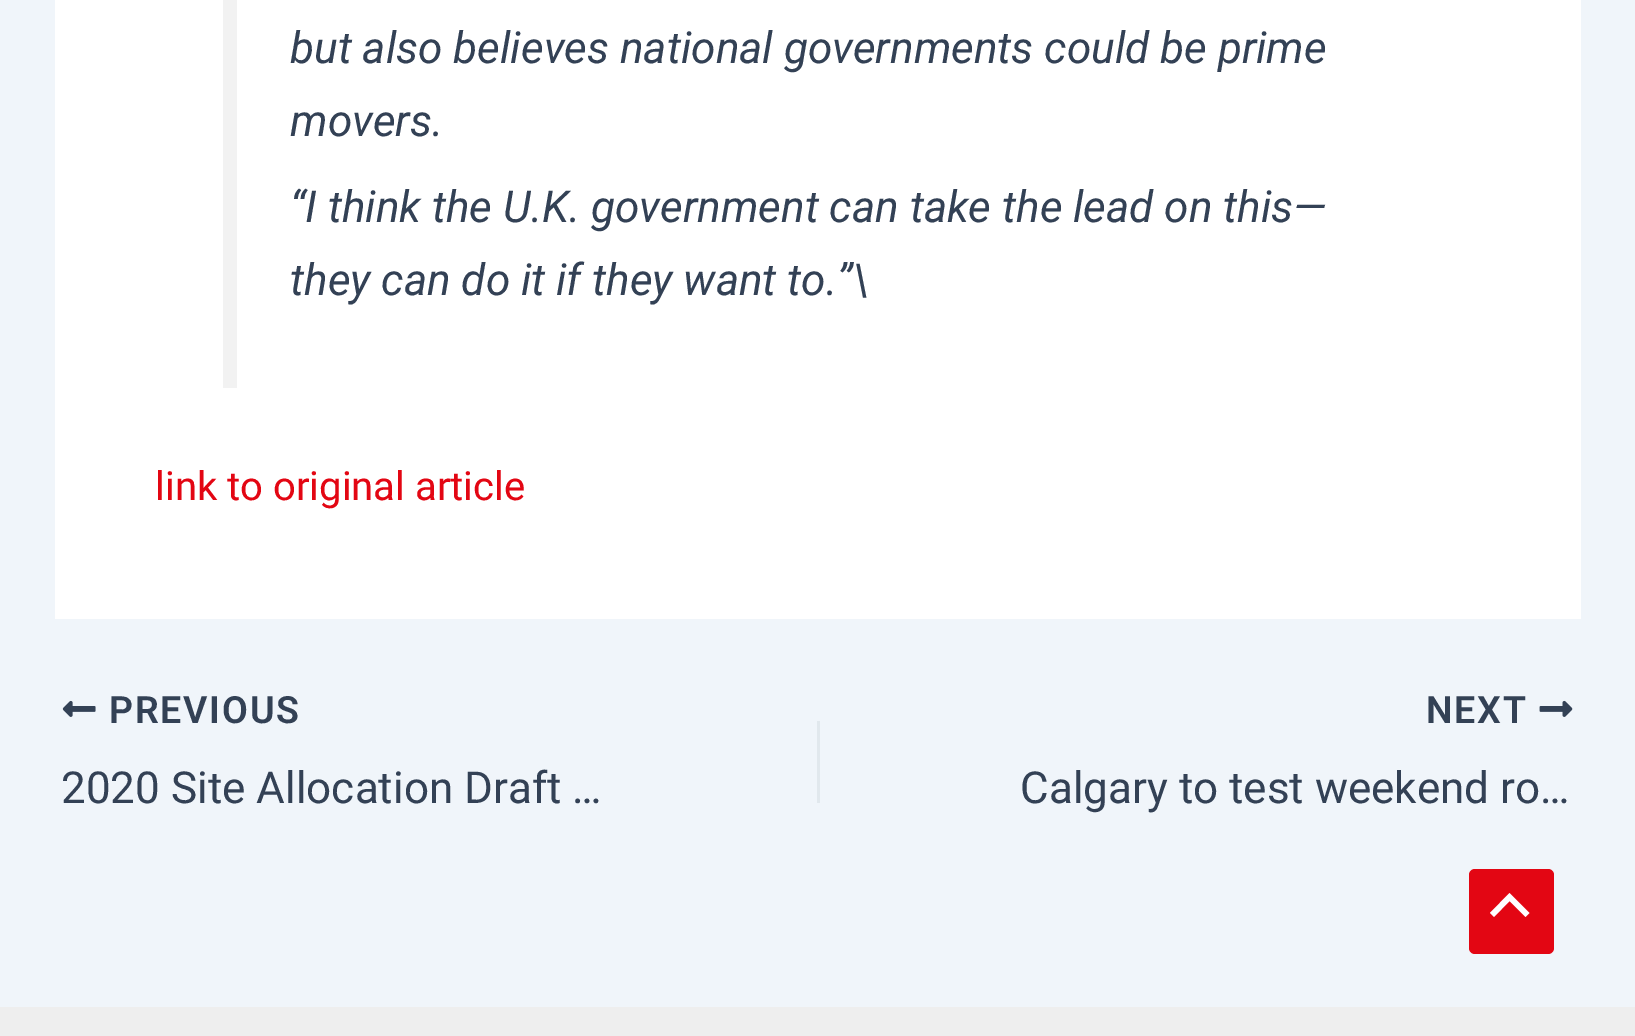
%!PS
<< /PageSize [1635 1036] >> setpagedevice
/rgb { 3 { 255 div 3 1 roll } repeat setrgbcolor } def
/font { [ exch dup neg 0 0 3 -1 roll 0 0 ] selectfont } def
/roundrect { 5 dict begin { /r /h /w /y /x } { exch def } forall
  x r add y moveto x w add y 2 copy h add r arct x w add y h add x 1 index r arct
  x y h add x y r arct x y 2 copy exch w add exch r arct closepath end } def
/picture { 5 dict begin { /h /w /y /x /name } { exch def } forall
  gsave x y translate w h scale
  w h 8 [w 0 0 h 0 0] name (r) file false 3 colorimage grestore end } def
0 1036 translate 1 -1 scale
4 setmiterlimit
240 245 250 rgb
0 0 1635 1036 rectfill
255 255 255 rgb
55 0 1526 619 rectfill
242 242 242 rgb
223 0 14 388 rectfill
(img/1.rgb) 62 700 34 17 picture
225 232 237 rgb
817 721 3 82 rectfill
(img/2.rgb) 1539 700 34 17 picture
238 238 238 rgb
0 1007 1635 29 rectfill
227 6 19 rgb
1469 869 85 85 6 roundrect fill
255 255 255 rgb
1529.5 913 moveto 1509.5 893 lineto 1490 913 lineto 1494 917 lineto 1509.5 901 lineto 1525.5 917 lineto closepath fill
/Roboto-Italic 44.1 font
51 65 85 rgb
[
  [(but also believes national governments could be prime) 290 63]
  [(movers.) 290 136]
  [(“I think the U.K. government can take the lead on this—) 290 222]
  [(they can do it if they want to.”\\) 290 295]
] { aload pop moveto show } forall
/Roboto-Regular 40.1 font
227 6 19 rgb
155 500 moveto (link to original article) show
/Roboto-SemiBold 37.5 font
51 65 85 rgb
109 723 moveto 1.75 0 (PREVIOUS) ashow
/Roboto-Regular 44 font
61 803 moveto (2020 Site Allocation Draft …) show
/Roboto-SemiBold 37.5 font
1426 723 moveto 1.75 0 (NEXT) ashow
/Roboto-Regular 44 font
1020 803 moveto (Calgary to test weekend ro…) show
showpage
